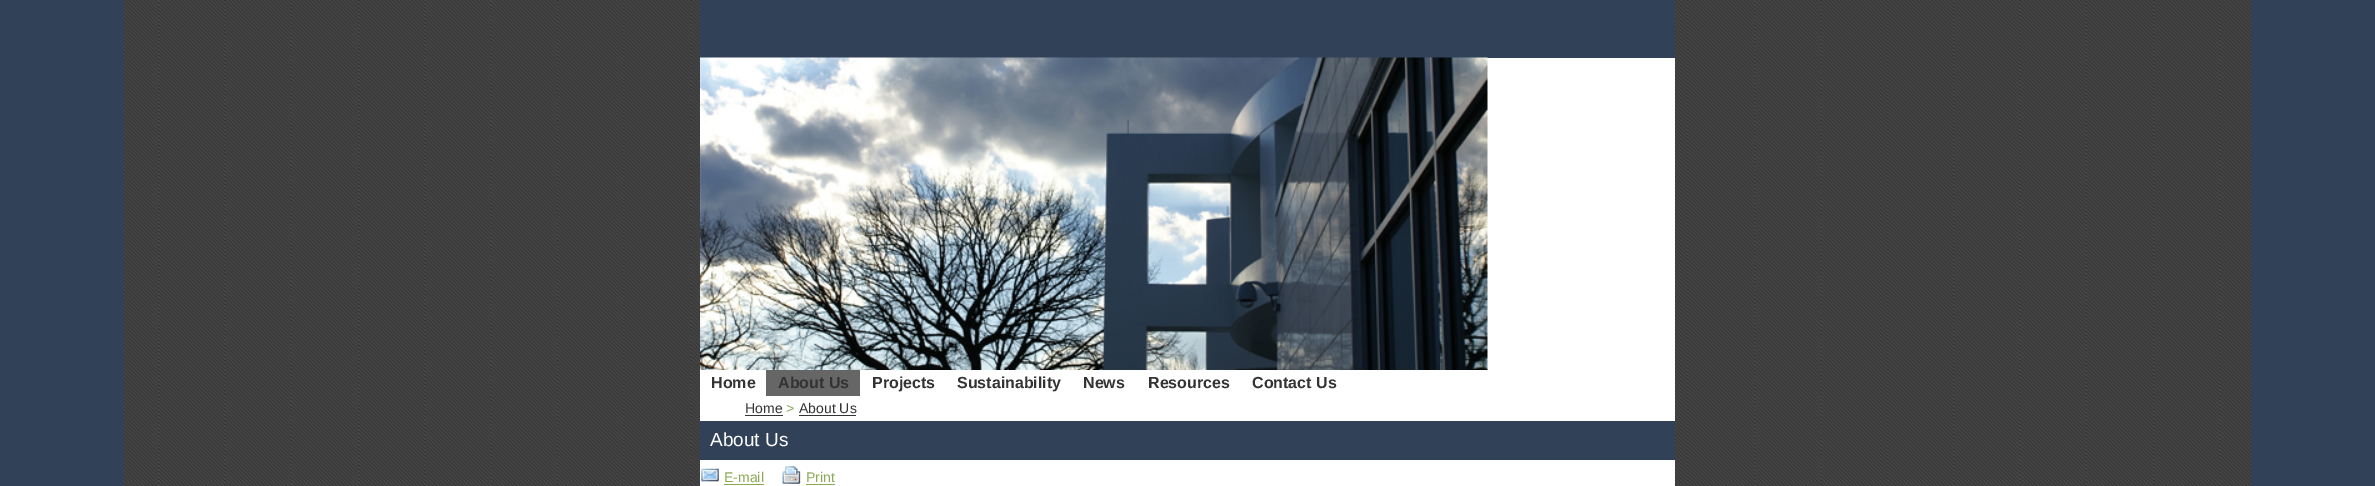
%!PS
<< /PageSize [2375 486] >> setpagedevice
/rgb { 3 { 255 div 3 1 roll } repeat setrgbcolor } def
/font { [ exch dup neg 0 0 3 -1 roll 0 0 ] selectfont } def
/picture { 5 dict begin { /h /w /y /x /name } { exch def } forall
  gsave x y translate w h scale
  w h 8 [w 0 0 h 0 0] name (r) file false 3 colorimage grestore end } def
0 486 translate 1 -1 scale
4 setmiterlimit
49 65 88 rgb
0 0 2375 486 rectfill
(img/1.rgb) 123 0 2129 486 picture
255 255 255 rgb
700 58 975 428 rectfill
49 65 88 rgb
700 0 975 58 rectfill
(img/2.rgb) 700 57 788 313 picture
[
  [766 370 94 26 102 102 102]
  [745 415 38 1 51 51 51]
  [799 415 57 1 51 51 51]
  [700 421 975 39 49 65 88]
] { aload pop rgb rectfill } forall
(img/3.rgb) 701 468 18 14 picture
138 169 80 rgb
724 484 40 1 rectfill
(img/4.rgb) 782 466 19 18 picture
806 484 29 1 rectfill
/LiberationSans-Bold 16 font
51 51 51 rgb
[
  [(Home) 711 388]
  [(About Us) 778 388]
  [(Projects) 872 388]
  [(Sustainability) 957 388]
  [(News) 1083 388]
  [(Resources) 1148 388]
  [(Contact Us) 1252 388]
] { aload pop moveto show } forall
/LiberationSans-Regular 14 font
745 413 moveto (Home) show
138 169 80 rgb
786 413 moveto (>) show
51 51 51 rgb
799 413 moveto (About Us) show
/LiberationSans-Regular 19 font
255 255 255 rgb
710 446 moveto (About Us) show
/LiberationSans-Regular 14 font
138 169 80 rgb
724 482 moveto (E-mail) show
806 482 moveto (Print) show
showpage
